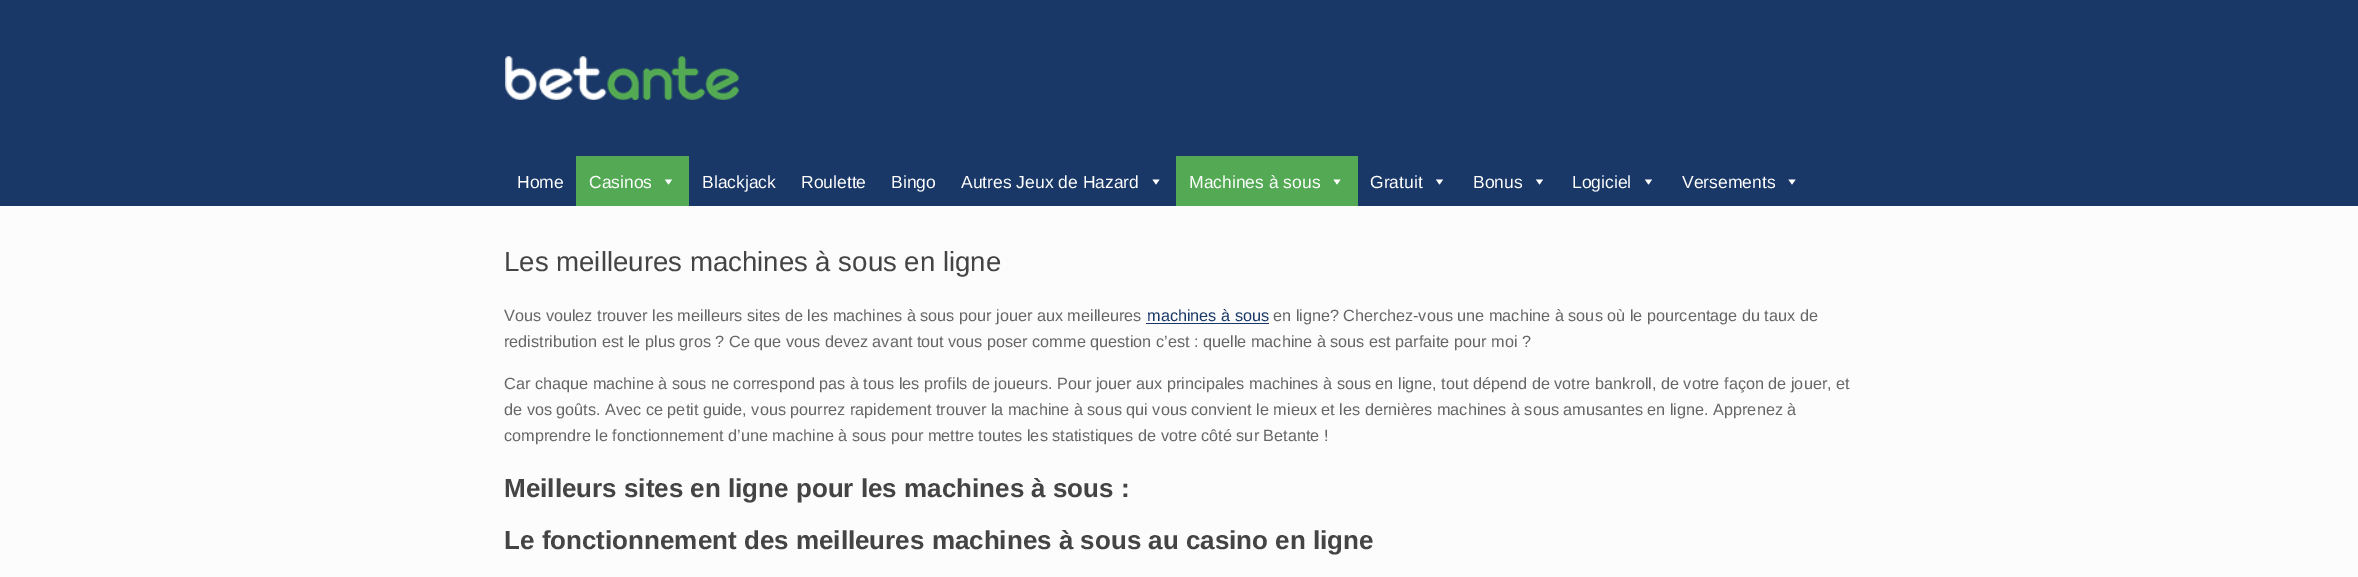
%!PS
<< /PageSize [2358 577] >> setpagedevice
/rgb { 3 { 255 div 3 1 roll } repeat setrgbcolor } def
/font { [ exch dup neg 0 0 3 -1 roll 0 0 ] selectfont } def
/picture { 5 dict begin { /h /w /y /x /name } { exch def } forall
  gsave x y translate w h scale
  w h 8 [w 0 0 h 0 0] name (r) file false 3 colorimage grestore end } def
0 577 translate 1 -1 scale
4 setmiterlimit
25 56 103 rgb
0 0 2358 577 rectfill
(img/1.rgb) 505 56 234 44 picture
84 170 84 rgb
576 156 113 50 rectfill
255 255 255 rgb
672 179.5 moveto 668.5 184.5 lineto 665 179.5 lineto closepath fill
1159.5 179.5 moveto 1156 184.5 lineto 1152.5 179.5 lineto closepath fill
84 170 84 rgb
1176 156 182 50 rectfill
255 255 255 rgb
1340.5 179.5 moveto 1337 184.5 lineto 1333.5 179.5 lineto closepath fill
1443 179.5 moveto 1439.5 184.5 lineto 1436 179.5 lineto closepath fill
1543 179.5 moveto 1539.5 184.5 lineto 1536 179.5 lineto closepath fill
1652 179.5 moveto 1648.5 184.5 lineto 1645 179.5 lineto closepath fill
1795.5 179.5 moveto 1792 184.5 lineto 1788.5 179.5 lineto closepath fill
252 252 252 rgb
0 206 2358 371 rectfill
25 56 103 rgb
1146 323 123 1 rectfill
/LiberationSans-Regular 17.5 font
255 255 255 rgb
[
  [(Home) 517 188]
  [(Casinos) 589 188]
  [(Blackjack) 702 188]
  [(Roulette) 801 188]
  [(Bingo) 891 188]
  [(Autres Jeux de Hazard) 961 188]
  [(Machines à sous) 1189 188]
  [(Gratuit) 1370 188]
  [(Bonus) 1473 188]
  [(Logiciel) 1572 188]
  [(Versements) 1682 188]
] { aload pop moveto show } forall
/LiberationSans-Regular 27.6 font
68 68 68 rgb
504 271 moveto (Les meilleures machines à sous en ligne) show
/LiberationSans-Regular 16.25 font
102 102 102 rgb
504 321 moveto (Vous voulez trouver les meilleurs sites de les machines à sous pour jouer aux meilleures) show
25 56 103 rgb
1147 321 moveto (machines à sous) show
102 102 102 rgb
[
  [(en ligne? Cherchez-vous une machine à sous où le pourcentage du taux de) 1273 321]
  [(redistribution est le plus gros ? Ce que vous devez avant tout vous poser comme question c’est : quelle machine à sous est parfaite pour moi ?) 504 347]
  [(Car chaque machine à sous ne correspond pas à tous les profils de joueurs. Pour jouer aux principales machines à sous en ligne, tout dépend de votre bankroll, de votre façon de jouer, et) 504 389]
  [(de vos goûts. Avec ce petit guide, vous pourrez rapidement trouver la machine à sous qui vous convient le mieux et les dernières machines à sous amusantes en ligne. Apprenez à) 504 415]
  [(comprendre le fonctionnement d’une machine à sous pour mettre toutes les statistiques de votre côté sur Betante !) 504 441]
] { aload pop moveto show } forall
/LiberationSans-Bold 26 font
68 68 68 rgb
504 497 moveto (Meilleurs sites en ligne pour les machines à sous :) show
504 549 moveto (Le fonctionnement des meilleures machines à sous au casino en ligne) show
showpage
